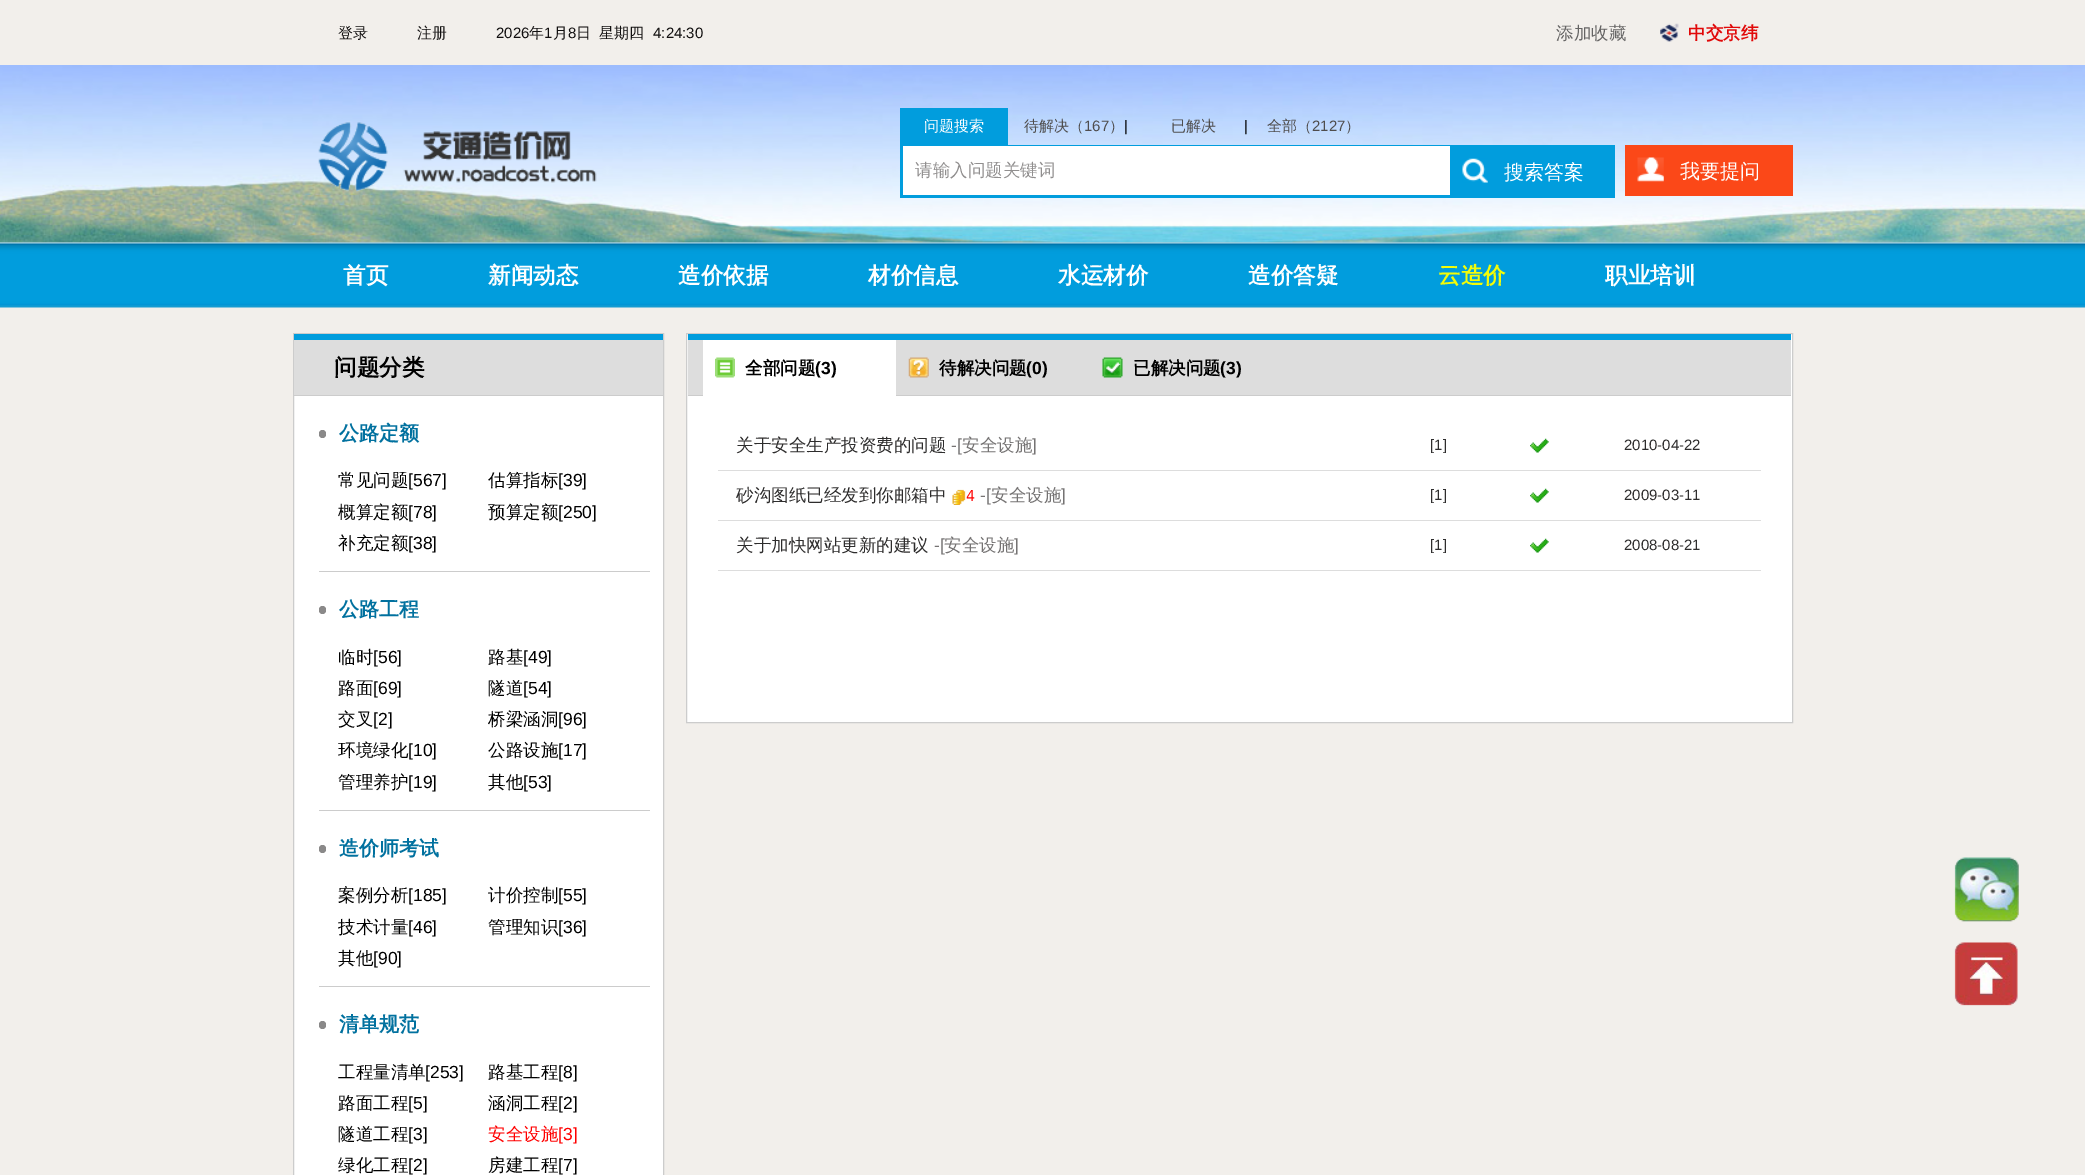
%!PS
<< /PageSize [2085 1175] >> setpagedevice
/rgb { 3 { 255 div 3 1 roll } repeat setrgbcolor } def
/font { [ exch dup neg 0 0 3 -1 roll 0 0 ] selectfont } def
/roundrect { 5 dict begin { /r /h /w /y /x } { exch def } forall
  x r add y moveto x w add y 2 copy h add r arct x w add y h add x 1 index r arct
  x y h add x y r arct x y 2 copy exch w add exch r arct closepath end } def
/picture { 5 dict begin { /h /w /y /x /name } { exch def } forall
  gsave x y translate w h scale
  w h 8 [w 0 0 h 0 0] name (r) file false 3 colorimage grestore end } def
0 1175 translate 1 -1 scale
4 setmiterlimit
242 239 235 rgb
0 0 2085 1175 rectfill
(img/1.rgb) 1660 23 19 19 picture
(img/2.rgb) 0 65 2085 178 picture
(img/3.rgb) 318 121 279 71 picture
[
  [900 108 108 37 1 157 221]
  [900 145 715 53 1 157 221]
  [903 146 547 49 255 255 255]
] { aload pop rgb rectfill } forall
(img/4.rgb) 1462 158 26 25 picture
251 72 24 rgb
1625 145 168 51 rectfill
(img/5.rgb) 1637 157 27 25 picture
(img/6.rgb) 0 242 2085 66 picture
255 255 255 rgb
294 396 369 779 rectfill
204 204 204 rgb
293.5 333.5 370 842 rectstroke
[
  [294 340 369 55 221 221 221]
  [294 334 369 6 1 157 221]
  [294 395 369 1 204 204 204]
  [319 571 331 1 204 204 204]
] { aload pop rgb rectfill } forall
138 137 137 rgb
319 430 7 8 3.5 roundrect fill
204 204 204 rgb
319 810 331 1 rectfill
138 137 137 rgb
319 606 7 8 3.5 roundrect fill
204 204 204 rgb
319 986 331 1 rectfill
138 137 137 rgb
319 845 7 8 3.5 roundrect fill
319 1021 7 8 3.5 roundrect fill
255 255 255 rgb
686.5 333.5 moveto 1792.5 333.5 lineto 1792.5 722.5 lineto 686.5 722.5 lineto closepath gsave fill grestore
204 204 204 rgb
stroke
[
  [688 340 1103 55 221 221 221]
  [688 334 1103 6 1 157 221]
  [688 395 1103 1 204 204 204]
  [703 340 193 56 255 255 255]
] { aload pop rgb rectfill } forall
(img/7.rgb) 715 357 20 21 picture
(img/8.rgb) 908 357 21 21 picture
(img/9.rgb) 1102 357 21 21 picture
221 221 221 rgb
718 470 1043 1 rectfill
(img/10.rgb) 1530 438 19 15 picture
718 520 1043 1 rectfill
(img/11.rgb) 952 489 14 16 picture
(img/10.rgb) 1530 488 19 15 picture
718 570 1043 1 rectfill
(img/10.rgb) 1530 538 19 15 picture
(img/12.rgb) 1954 857 65 65 picture
(img/13.rgb) 1954 942 64 64 picture
/WenQuanYiZenHei-Medium 15 font
18 16 16 rgb
338 38 moveto (登录) show
417 38 moveto (注册) show
/LiberationSans-Regular 15 font
496 38 moveto (2026) show
/WenQuanYiZenHei-Medium 15 font
529 38 moveto (年) show
/LiberationSans-Regular 15 font
544 38 moveto (1) show
/WenQuanYiZenHei-Medium 15 font
553 38 moveto (月) show
/LiberationSans-Regular 15 font
568 38 moveto (8) show
/WenQuanYiZenHei-Medium 15 font
576 38 moveto (日) show
599 38 moveto (星期四) show
/LiberationSans-Regular 15 font
653 38 moveto (4:24:30) show
/WenQuanYiZenHei-Medium 17.5 font
101 100 100 rgb
1556 39 moveto (添加收藏) show
/WenQuanYiZenHei-Bold 17.5 font
225 8 8 rgb
1688 39 moveto (中交京纬) show
/WenQuanYiZenHei-Medium 15 font
255 255 255 rgb
924 131 moveto (问题搜索) show
79 77 77 rgb
1024 131 moveto (待解决（) show
/LiberationSans-Regular 15 font
1084 131 moveto (167) show
/WenQuanYiZenHei-Medium 15 font
1109 131 moveto (）) show
/LiberationSans-Regular 15 font
0 0 0 rgb
1124 131 moveto (|) show
/WenQuanYiZenHei-Medium 15 font
79 77 77 rgb
1171 131 moveto (已解决) show
/LiberationSans-Regular 15 font
0 0 0 rgb
1244 131 moveto (|) show
/WenQuanYiZenHei-Medium 15 font
79 77 77 rgb
1267 131 moveto (全部（) show
/LiberationSans-Regular 15 font
1312 131 moveto (2127) show
/WenQuanYiZenHei-Medium 15 font
1345 131 moveto (）) show
/WenQuanYiZenHei-Medium 17.5 font
145 143 143 rgb
915 176 moveto (请输入问题关键词) show
/WenQuanYiZenHei-Medium 20 font
255 255 255 rgb
1504 179 moveto (搜索答案) show
1680 178 moveto (我要提问) show
/WenQuanYiZenHei-Bold 22.5 font
[
  [(首页) 343 283]
  [(新闻动态) 488 283]
  [(造价依据) 678 283]
  [(材价信息) 868 283]
  [(水运材价) 1058 283]
  [(造价答疑) 1248 283]
] { aload pop moveto show } forall
243 252 8 rgb
1438 283 moveto (云造价) show
255 255 255 rgb
1605 283 moveto (职业培训) show
0 0 0 rgb
334 375 moveto (问题分类) show
/WenQuanYiZenHei-Bold 20 font
1 113 159 rgb
339 440 moveto (公路定额) show
/WenQuanYiZenHei-Medium 17.5 font
0 0 0 rgb
338 486 moveto (常见问题) show
/LiberationSans-Regular 17.5 font
408 486 moveto ([567]) show
/WenQuanYiZenHei-Medium 17.5 font
488 486 moveto (估算指标) show
/LiberationSans-Regular 17.5 font
558 486 moveto ([39]) show
/WenQuanYiZenHei-Medium 17.5 font
338 518 moveto (概算定额) show
/LiberationSans-Regular 17.5 font
408 518 moveto ([78]) show
/WenQuanYiZenHei-Medium 17.5 font
488 518 moveto (预算定额) show
/LiberationSans-Regular 17.5 font
558 518 moveto ([250]) show
/WenQuanYiZenHei-Medium 17.5 font
338 549 moveto (补充定额) show
/LiberationSans-Regular 17.5 font
408 549 moveto ([38]) show
/WenQuanYiZenHei-Bold 20 font
1 113 159 rgb
339 616 moveto (公路工程) show
/WenQuanYiZenHei-Medium 17.5 font
0 0 0 rgb
338 663 moveto (临时) show
/LiberationSans-Regular 17.5 font
373 663 moveto ([56]) show
/WenQuanYiZenHei-Medium 17.5 font
488 663 moveto (路基) show
/LiberationSans-Regular 17.5 font
523 663 moveto ([49]) show
/WenQuanYiZenHei-Medium 17.5 font
338 694 moveto (路面) show
/LiberationSans-Regular 17.5 font
373 694 moveto ([69]) show
/WenQuanYiZenHei-Medium 17.5 font
488 694 moveto (隧道) show
/LiberationSans-Regular 17.5 font
523 694 moveto ([54]) show
/WenQuanYiZenHei-Medium 17.5 font
338 725 moveto (交叉) show
/LiberationSans-Regular 17.5 font
373 725 moveto ([2]) show
/WenQuanYiZenHei-Medium 17.5 font
488 725 moveto (桥梁涵洞) show
/LiberationSans-Regular 17.5 font
558 725 moveto ([96]) show
gsave
338 735 131 31 rectclip
/WenQuanYiZenHei-Medium 17.5 font
338 756 moveto (环境绿化) show
grestore
408 756 moveto ([10]) show
/WenQuanYiZenHei-Medium 17.5 font
488 756 moveto (公路设施) show
/LiberationSans-Regular 17.5 font
558 756 moveto ([17]) show
/WenQuanYiZenHei-Medium 17.5 font
338 788 moveto (管理养护) show
/LiberationSans-Regular 17.5 font
408 788 moveto ([19]) show
/WenQuanYiZenHei-Medium 17.5 font
488 788 moveto (其他) show
/LiberationSans-Regular 17.5 font
523 788 moveto ([53]) show
/WenQuanYiZenHei-Bold 20 font
1 113 159 rgb
339 855 moveto (造价师考试) show
/WenQuanYiZenHei-Medium 17.5 font
0 0 0 rgb
338 901 moveto (案例分析) show
/LiberationSans-Regular 17.5 font
408 901 moveto ([185]) show
/WenQuanYiZenHei-Medium 17.5 font
488 901 moveto (计价控制) show
/LiberationSans-Regular 17.5 font
558 901 moveto ([55]) show
gsave
338 911 131 32 rectclip
/WenQuanYiZenHei-Medium 17.5 font
338 933 moveto (技术计量) show
grestore
408 933 moveto ([46]) show
/WenQuanYiZenHei-Medium 17.5 font
488 933 moveto (管理知识) show
/LiberationSans-Regular 17.5 font
558 933 moveto ([36]) show
/WenQuanYiZenHei-Medium 17.5 font
338 964 moveto (其他) show
/LiberationSans-Regular 17.5 font
373 964 moveto ([90]) show
/WenQuanYiZenHei-Bold 20 font
1 113 159 rgb
339 1031 moveto (清单规范) show
/WenQuanYiZenHei-Medium 17.5 font
0 0 0 rgb
338 1078 moveto (工程量清单) show
/LiberationSans-Regular 17.5 font
425 1078 moveto ([253]) show
/WenQuanYiZenHei-Medium 17.5 font
488 1078 moveto (路基工程) show
/LiberationSans-Regular 17.5 font
558 1078 moveto ([8]) show
/WenQuanYiZenHei-Medium 17.5 font
338 1109 moveto (路面工程) show
/LiberationSans-Regular 17.5 font
408 1109 moveto ([5]) show
/WenQuanYiZenHei-Medium 17.5 font
488 1109 moveto (涵洞工程) show
/LiberationSans-Regular 17.5 font
558 1109 moveto ([2]) show
/WenQuanYiZenHei-Medium 17.5 font
338 1140 moveto (隧道工程) show
/LiberationSans-Regular 17.5 font
408 1140 moveto ([3]) show
/WenQuanYiZenHei-Medium 17.5 font
255 0 0 rgb
488 1140 moveto (安全设施) show
/LiberationSans-Regular 17.5 font
558 1140 moveto ([3]) show
/WenQuanYiZenHei-Medium 17.5 font
0 0 0 rgb
338 1171 moveto (绿化工程) show
/LiberationSans-Regular 17.5 font
408 1171 moveto ([2]) show
/WenQuanYiZenHei-Medium 17.5 font
488 1171 moveto (房建工程) show
/LiberationSans-Regular 17.5 font
558 1171 moveto ([7]) show
/WenQuanYiZenHei-Bold 17.5 font
745 374 moveto (全部问题) show
/LiberationSans-Bold 17.5 font
815 374 moveto (\(3\)) show
/WenQuanYiZenHei-Bold 17.5 font
939 374 moveto (待解决问题) show
/LiberationSans-Bold 17.5 font
1026 374 moveto (\(0\)) show
/WenQuanYiZenHei-Bold 17.5 font
1133 374 moveto (已解决问题) show
/LiberationSans-Bold 17.5 font
1220 374 moveto (\(3\)) show
/WenQuanYiZenHei-Medium 17.5 font
46 45 45 rgb
736 451 moveto (关于安全生产投资费的问题) show
/LiberationSans-Regular 17.5 font
117 115 115 rgb
951 451 moveto (-[) show
/WenQuanYiZenHei-Medium 17.5 font
962 451 moveto (安全设施) show
/LiberationSans-Regular 17.5 font
1032 451 moveto (]) show
/LiberationSans-Regular 15 font
46 45 45 rgb
1430 450 moveto ([1]) show
1624 450 moveto (2010-04-22) show
/WenQuanYiZenHei-Medium 17.5 font
736 501 moveto (砂沟图纸已经发到你邮箱中) show
/DejaVuSansMono-Regular 15 font
255 0 0 rgb
966 501 moveto (4) show
/LiberationSans-Regular 17.5 font
117 115 115 rgb
980 501 moveto (-[) show
/WenQuanYiZenHei-Medium 17.5 font
991 501 moveto (安全设施) show
/LiberationSans-Regular 17.5 font
1061 501 moveto (]) show
/LiberationSans-Regular 15 font
46 45 45 rgb
1430 500 moveto ([1]) show
1624 500 moveto (2009-03-11) show
/WenQuanYiZenHei-Medium 17.5 font
736 551 moveto (关于加快网站更新的建议) show
/LiberationSans-Regular 17.5 font
117 115 115 rgb
934 551 moveto (-[) show
/WenQuanYiZenHei-Medium 17.5 font
944 551 moveto (安全设施) show
/LiberationSans-Regular 17.5 font
1014 551 moveto (]) show
/LiberationSans-Regular 15 font
46 45 45 rgb
1430 550 moveto ([1]) show
1624 550 moveto (2008-08-21) show
showpage
